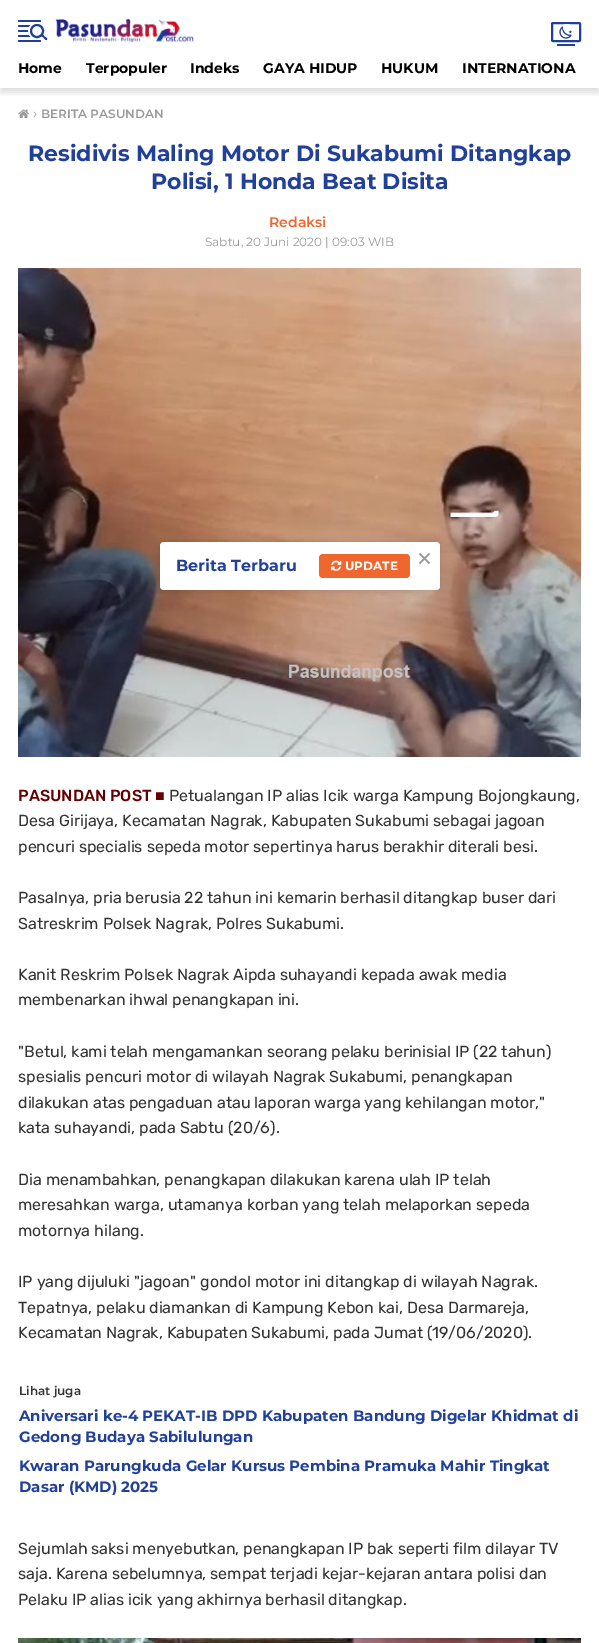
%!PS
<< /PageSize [599 1643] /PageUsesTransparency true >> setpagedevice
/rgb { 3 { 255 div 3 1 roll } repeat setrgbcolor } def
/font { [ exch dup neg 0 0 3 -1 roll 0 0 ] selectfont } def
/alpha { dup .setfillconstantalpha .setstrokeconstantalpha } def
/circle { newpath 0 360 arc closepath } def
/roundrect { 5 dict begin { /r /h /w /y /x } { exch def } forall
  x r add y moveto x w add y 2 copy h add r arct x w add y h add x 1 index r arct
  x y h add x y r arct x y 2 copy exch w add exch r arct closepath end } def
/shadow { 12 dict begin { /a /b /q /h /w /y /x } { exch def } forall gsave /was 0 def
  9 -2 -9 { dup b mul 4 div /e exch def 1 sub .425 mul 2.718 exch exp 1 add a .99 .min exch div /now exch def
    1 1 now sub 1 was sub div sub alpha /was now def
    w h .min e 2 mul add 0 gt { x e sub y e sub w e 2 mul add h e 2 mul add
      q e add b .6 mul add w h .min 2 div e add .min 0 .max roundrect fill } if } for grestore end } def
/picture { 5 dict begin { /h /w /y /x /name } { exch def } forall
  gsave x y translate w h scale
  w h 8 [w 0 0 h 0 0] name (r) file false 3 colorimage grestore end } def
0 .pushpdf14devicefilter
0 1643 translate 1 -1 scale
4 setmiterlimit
255 255 255 rgb
0 0 599 1643 rectfill
gsave
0 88 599 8 rectclip
0 0 0 rgb
0 4 599 88 0 4 0.15 shadow
grestore
(img/1.rgb) 55 19 139 23 picture
33 64 154 rgb
2 setlinewidth
552 23 28 18 1 roundrect stroke
(img/2.rgb) 559 26 13 13 picture
255 255 255 rgb
563 24 8 7 3.5 roundrect fill
33 64 154 rgb
557 44 18 2 1 roundrect fill
18 20 23 2 1 roundrect fill
18 25 23 2 1 roundrect fill
18 30 23 2 1 roundrect fill
18 35 23 2 1 roundrect fill
255 255 255 rgb
36 31 8 circle fill
33 64 154 rgb
37 31 6 circle stroke
41 34.5 moveto 42 33 44 35.5 44.5 36.5 curveto 45.5 37 48 38.5 47 39.5 curveto 46 41 44 38.5 43.5 37.5 curveto 42.5 37 40 35.5 41 34.5 curveto closepath fill
18 40 23 2 1 roundrect fill
(img/3.rgb) 18 109 11 9 picture
(img/4.rgb) 18 268 563 489 picture
(img/5.rgb) 18 1638 563 5 picture
0 0 0 rgb
160 542 280 48 4 4 0.15 shadow
255 255 255 rgb
160 542 280 48 4 roundrect fill
239 102 47 rgb
319 554 91 24 4 roundrect fill
(img/6.rgb) 331 560 11 11 picture
/Montserrat-Bold 14 font
0 0 0 rgb
[
  [(Home) 18 73]
  [(Terpopuler) 86 73]
  [(Indeks) 190 73]
  [(GAYA HIDUP) 263 73]
  [(HUKUM) 381 73]
  [(INTERNATIONA) 462 73]
] { aload pop moveto show } forall
/Montserrat-Regular 14 font
153 153 153 rgb
33 118 moveto (›) show
/Montserrat-SemiBold 12 font
41 118 moveto (BERITA PASUNDAN) show
/Montserrat-Bold 22 font
33 64 154 rgb
28 161 moveto (Residivis Maling Motor Di Sukabumi Ditangkap) show
151 189 moveto (Polisi, 1 Honda Beat Disita) show
/Montserrat-SemiBold 14 font
239 102 47 rgb
269 227 moveto (Redaksi) show
/Montserrat-Regular 12 font
153 153 153 rgb
205 246 moveto (Sabtu, 20 Juni 2020 | 09:03 WIB) show
/Rubik-Medium 16 font
102 0 0 rgb
18 801 moveto (PASUNDAN POST) show
/LiberationSans-Regular 16 font
155 801 moveto (■) show
/Rubik-Regular 16 font
51 51 51 rgb
[
  [(Petualangan IP alias Icik warga Kampung Bojongkaung,) 169 801]
  [(Desa Girijaya, Kecamatan Nagrak, Kabupaten Sukabumi sebagai jagoan) 18 826]
  [(pencuri specialis sepeda motor sepertinya harus berakhir diterali besi.) 18 852]
  [(Pasalnya, pria berusia 22 tahun ini kemarin berhasil ditangkap buser dari) 18 903]
  [(Satreskrim Polsek Nagrak, Polres Sukabumi.) 18 929]
  [(Kanit Reskrim Polsek Nagrak Aipda suhayandi kepada awak media) 18 980]
  [(membenarkan ihwal penangkapan ini.) 18 1005]
  [("Betul, kami telah mengamankan seorang pelaku berinisial IP \(22 tahun\)) 18 1057]
  [(spesialis pencuri motor di wilayah Nagrak Sukabumi, penangkapan) 18 1082]
  [(dilakukan atas pengaduan atau laporan warga yang kehilangan motor,") 18 1108]
  [(kata suhayandi, pada Sabtu \(20/6\).) 18 1133]
  [(Dia menambahkan, penangkapan dilakukan karena ulah IP telah) 18 1185]
  [(meresahkan warga, utamanya korban yang telah melaporkan sepeda) 18 1210]
  [(motornya hilang.) 18 1236]
  [(IP yang dijuluki "jagoan" gondol motor ini ditangkap di wilayah Nagrak.) 18 1287]
  [(Tepatnya, pelaku diamankan di Kampung Kebon kai, Desa Darmareja,) 18 1313]
  [(Kecamatan Nagrak, Kabupaten Sukabumi, pada Jumat \(19/06/2020\).) 18 1338]
] { aload pop moveto show } forall
/Montserrat-SemiBold 12 font
19 1395 moveto (Lihat juga) show
/Montserrat-Bold 15 font
33 64 154 rgb
[
  [(Aniversari ke-4 PEKAT-IB DPD Kabupaten Bandung Digelar Khidmat di) 19 1421]
  [(Gedong Budaya Sabilulungan) 19 1442]
  [(Kwaran Parungkuda Gelar Kursus Pembina Pramuka Mahir Tingkat) 19 1471]
  [(Dasar \(KMD\) 2025) 19 1492]
] { aload pop moveto show } forall
/Rubik-Regular 16 font
51 51 51 rgb
[
  [(Sejumlah saksi menyebutkan, penangkapan IP bak seperti film dilayar TV) 18 1554]
  [(saja. Karena sebelumnya, sempat terjadi kejar-kejaran antara polisi dan) 18 1579]
  [(Pelaku IP alias icik yang akhirnya berhasil ditangkap.) 18 1605]
] { aload pop moveto show } forall
/Montserrat-Bold 16 font
33 64 154 rgb
176 571 moveto (Berita Terbaru) show
/Montserrat-Bold 12 font
255 255 255 rgb
345 570 moveto (UPDATE) show
/Montserrat-Regular 33 font
153 153 153 rgb
415 570 moveto (×) show
.poppdf14devicefilter showpage
